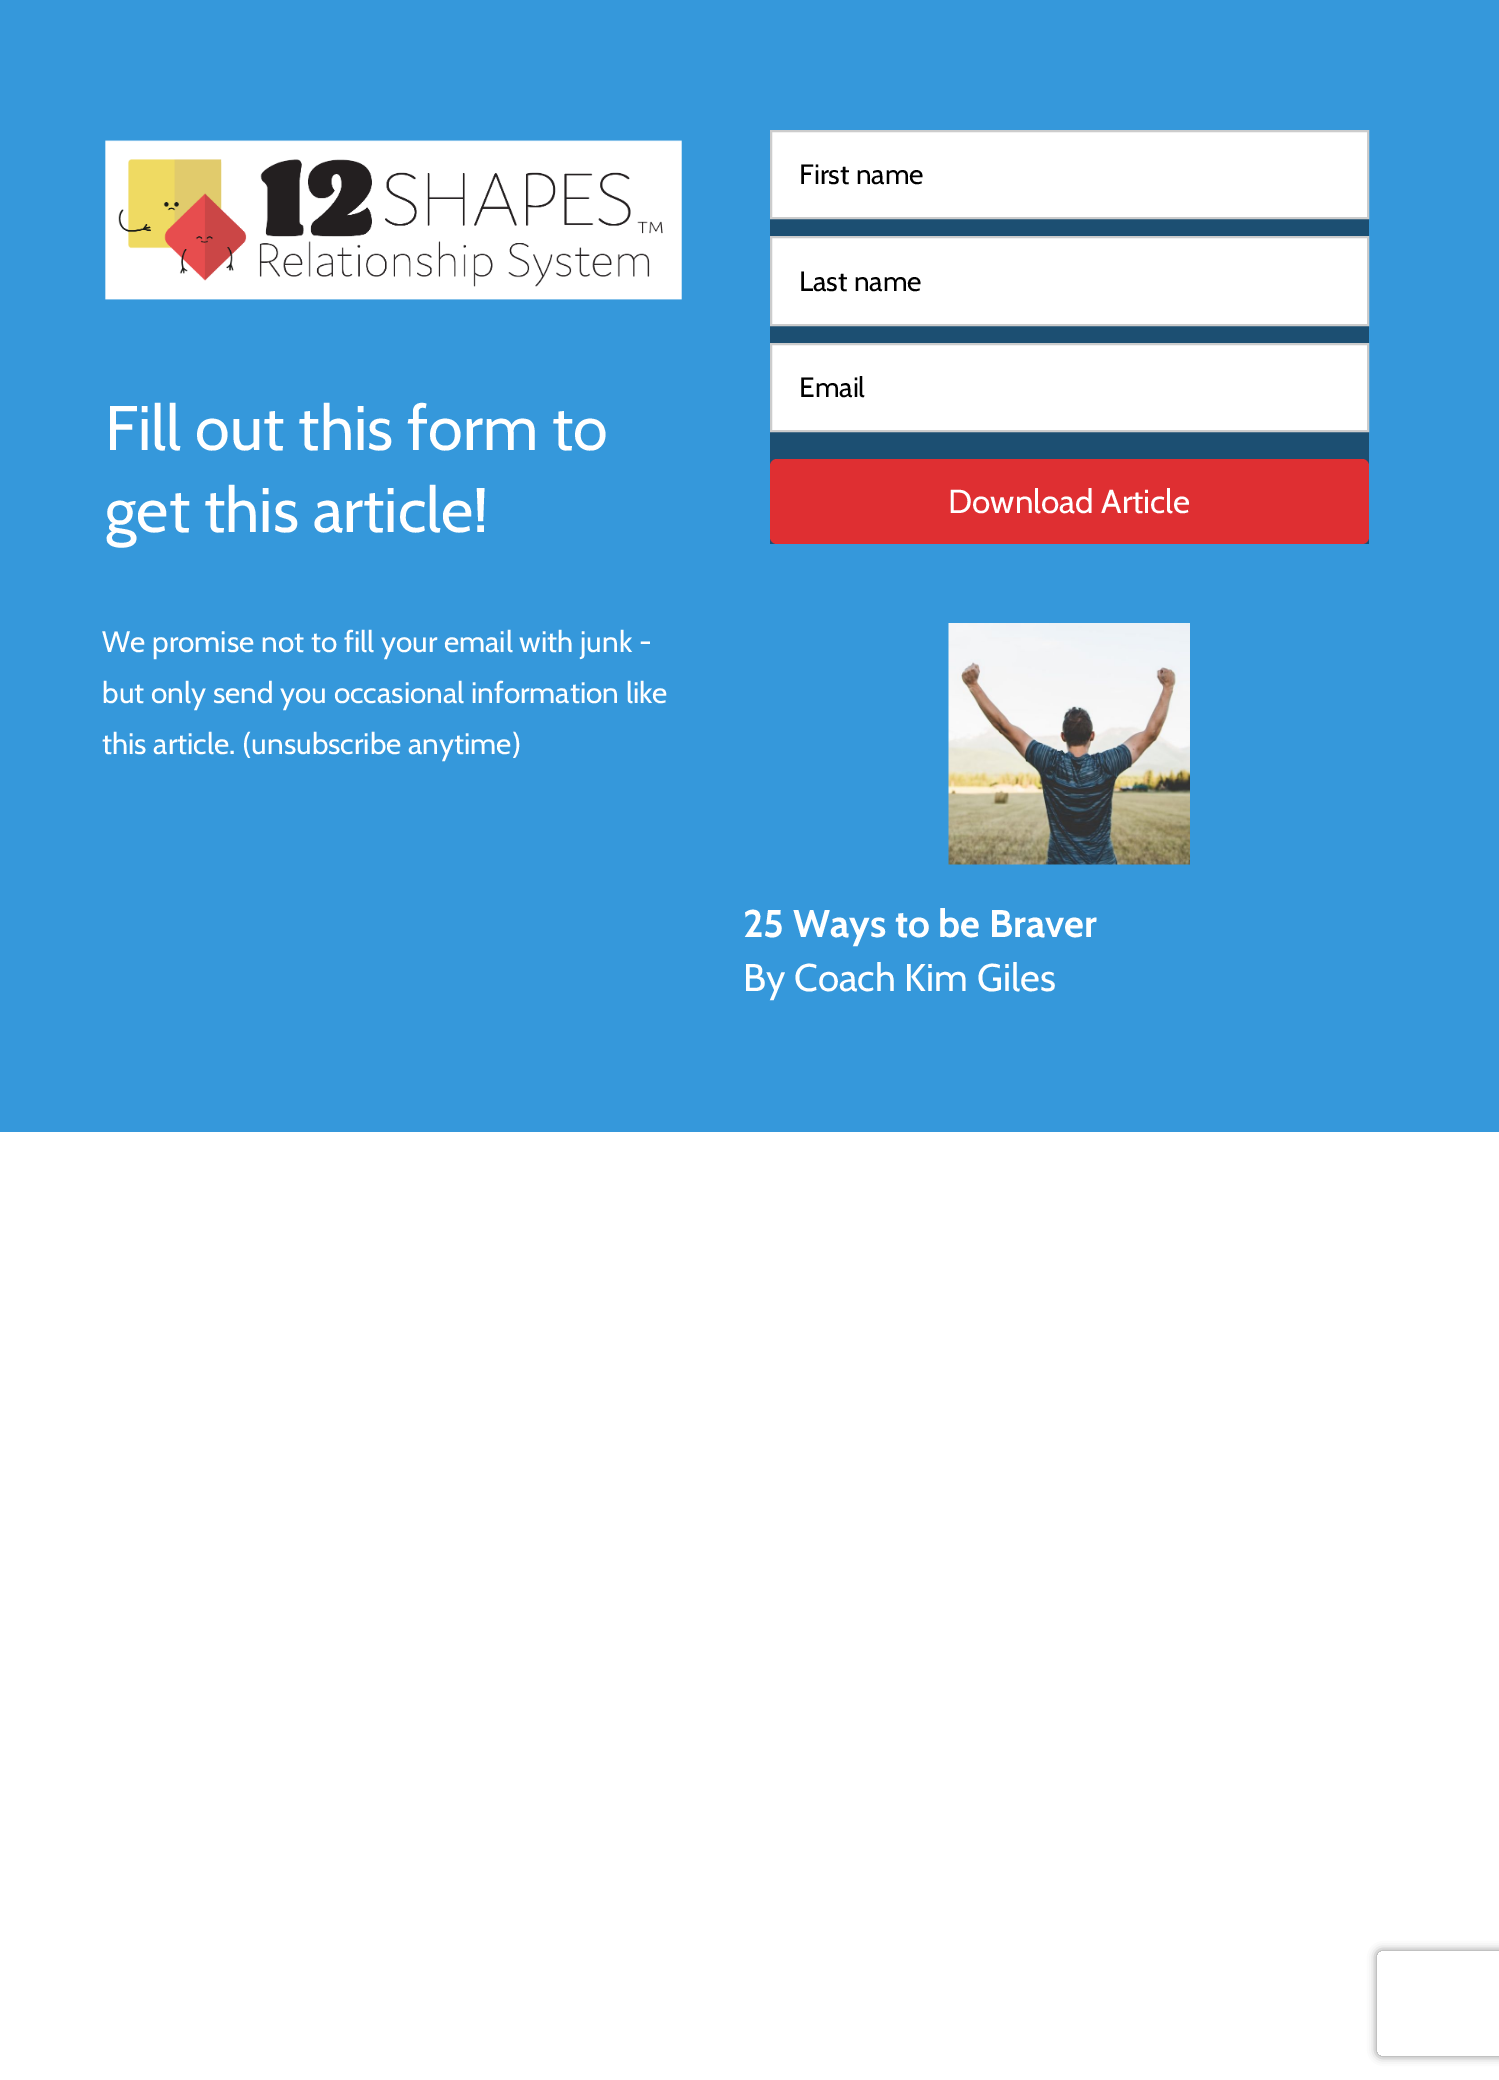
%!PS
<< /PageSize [1499 2080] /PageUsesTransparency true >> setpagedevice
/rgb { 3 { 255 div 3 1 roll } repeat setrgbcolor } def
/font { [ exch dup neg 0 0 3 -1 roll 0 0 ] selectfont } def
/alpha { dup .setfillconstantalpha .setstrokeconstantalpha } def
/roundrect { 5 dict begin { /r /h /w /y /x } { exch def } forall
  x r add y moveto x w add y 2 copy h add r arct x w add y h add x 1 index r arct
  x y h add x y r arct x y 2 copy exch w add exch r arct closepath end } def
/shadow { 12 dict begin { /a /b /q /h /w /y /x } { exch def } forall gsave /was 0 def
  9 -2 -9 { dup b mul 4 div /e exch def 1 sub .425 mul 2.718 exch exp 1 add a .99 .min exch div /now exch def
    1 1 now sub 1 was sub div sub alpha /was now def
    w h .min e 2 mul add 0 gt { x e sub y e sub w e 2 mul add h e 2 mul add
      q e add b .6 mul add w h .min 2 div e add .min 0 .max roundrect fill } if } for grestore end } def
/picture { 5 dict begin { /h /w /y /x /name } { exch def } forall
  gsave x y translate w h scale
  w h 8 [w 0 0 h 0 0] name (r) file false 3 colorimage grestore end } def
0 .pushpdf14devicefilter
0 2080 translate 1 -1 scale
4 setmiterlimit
255 255 255 rgb
0 0 1499 2080 rectfill
53 152 219 rgb
0 0 1499 1132 rectfill
(img/1.rgb) 105 140 577 160 picture
28 79 114 rgb
770 219 599 325 rectfill
255 255 255 rgb
771 131 moveto 1368 131 lineto 1368 218 lineto 771 218 lineto closepath gsave fill grestore
204 204 204 rgb
2 setlinewidth
stroke
255 255 255 rgb
771 237 moveto 1368 237 lineto 1368 325 lineto 771 325 lineto closepath gsave fill grestore
204 204 204 rgb
stroke
255 255 255 rgb
771 344 moveto 1368 344 lineto 1368 431 lineto 771 431 lineto closepath gsave fill grestore
204 204 204 rgb
stroke
223 47 50 rgb
770 459 599 85 7 roundrect fill
(img/2.rgb) 948 623 242 242 picture
gsave
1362 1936 moveto 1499 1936 lineto 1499 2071 lineto 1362 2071 lineto closepath 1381 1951 moveto 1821 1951 lineto 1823 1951 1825 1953 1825 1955 curveto 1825 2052 lineto 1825 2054 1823 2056 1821 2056 curveto 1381 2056 lineto 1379 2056 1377 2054 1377 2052 curveto 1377 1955 lineto 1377 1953 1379 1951 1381 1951 curveto closepath eoclip newpath
128 128 128 rgb
1377 1951 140 105 4 4.5 1 shadow
grestore
/Cabin-Regular 63 font
255 255 255 rgb
105 450 moveto (Fill out this form to) show
105 532 moveto (get this article!) show
/Cabin-Regular 29.75 font
[
  [(We promise not to fill your email with junk -) 102 652]
  [(but only send you occasional information like) 102 703]
  [(this article. \(unsubscribe anytime\)) 102 754]
] { aload pop moveto show } forall
/Cabin-Regular 28 font
0 0 0 rgb
[
  [(First name) 799 184]
  [(Last name) 799 291]
  [(Email) 799 397]
] { aload pop moveto show } forall
/Cabin-Regular 33.25 font
255 255 255 rgb
948 513 moveto (Download Article) show
/Cabin-Bold 38.5 font
743 937 moveto (25 Ways to be Braver) show
/Cabin-Regular 38.5 font
743 991 moveto (By Coach Kim Giles) show
.poppdf14devicefilter showpage
